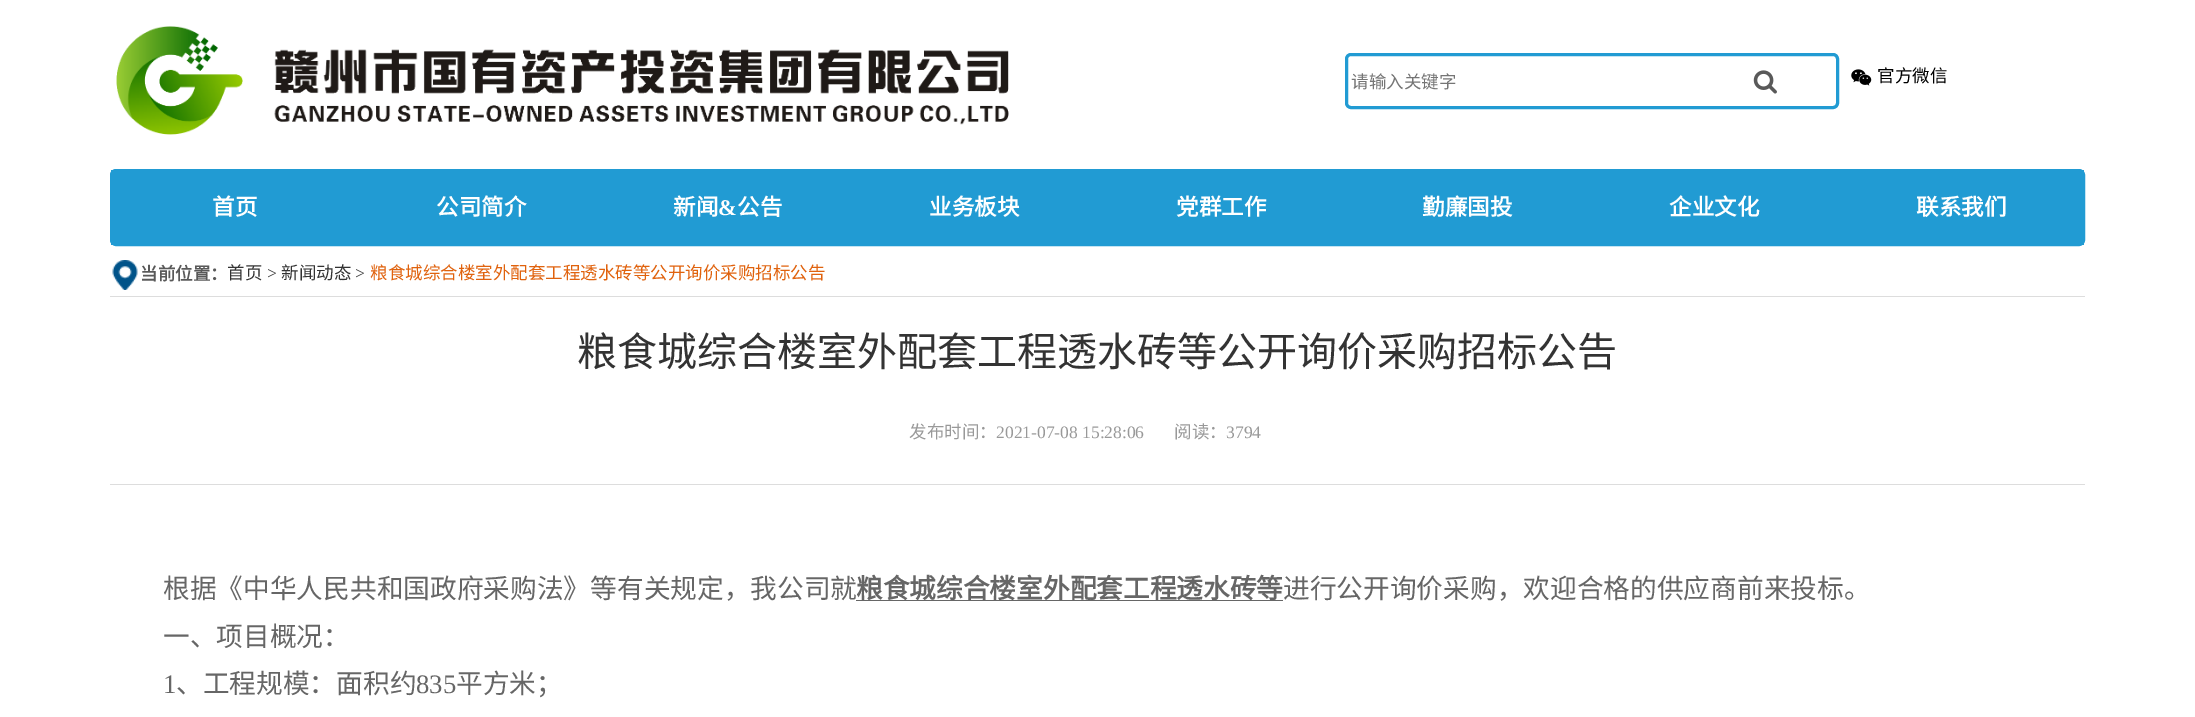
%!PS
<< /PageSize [2195 717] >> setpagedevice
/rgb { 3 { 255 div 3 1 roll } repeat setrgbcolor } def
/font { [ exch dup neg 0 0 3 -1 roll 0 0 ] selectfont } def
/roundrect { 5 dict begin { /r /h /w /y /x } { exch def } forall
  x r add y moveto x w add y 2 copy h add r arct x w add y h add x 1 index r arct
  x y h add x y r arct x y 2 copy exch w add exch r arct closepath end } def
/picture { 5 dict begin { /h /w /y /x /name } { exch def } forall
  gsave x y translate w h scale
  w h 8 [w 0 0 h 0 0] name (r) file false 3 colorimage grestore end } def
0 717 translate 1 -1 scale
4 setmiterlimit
255 255 255 rgb
0 0 2195 717 rectfill
(img/1.rgb) 116 26 893 109 picture
33 155 211 rgb
3 setlinewidth
1346.5 54.5 491 53 4.5 roundrect stroke
(img/2.rgb) 1753 70 24 24 picture
(img/3.rgb) 1851 69 21 17 picture
1 setlinewidth
110.5 169.5 1974 76 5.5 roundrect stroke
111 170 1973 75 rectfill
221 221 221 rgb
110 296 1975 1 rectfill
(img/4.rgb) 112 260 26 30 picture
110 484 1975 1 rectfill
102 102 102 rgb
856 600 427 1 rectfill
/NotoSansCJKSC-Regular 17.5 font
117 117 117 rgb
1351 88 moveto (请输入关键字) show
0 0 0 rgb
1877 82 moveto (官方微信) show
/NotoSansCJKSC-Bold 22.5 font
255 255 255 rgb
[
  [(首页) 212 215]
  [(公司简介) 436 215]
  [(新闻) 673 215]
] { aload pop moveto show } forall
/LiberationSerif-Bold 22.5 font
718 215 moveto (&) show
/NotoSansCJKSC-Bold 22.5 font
[
  [(公告) 737 215]
  [(业务板块) 929 215]
  [(党群工作) 1176 215]
  [(勤廉国投) 1422 215]
  [(企业文化) 1669 215]
  [(联系我们) 1916 215]
] { aload pop moveto show } forall
/NotoSansCJKSC-Bold 17.5 font
89 89 89 rgb
140 280 moveto (当前位置：) show
/NotoSansCJKSC-Regular 17.5 font
51 51 51 rgb
227 279 moveto (首页) show
/LiberationSerif-Regular 17.5 font
267 279 moveto (>) show
/NotoSansCJKSC-Regular 17.5 font
281 279 moveto (新闻动态) show
/LiberationSerif-Regular 17.5 font
355 279 moveto (>) show
/NotoSansCJKSC-Regular 17.5 font
224 98 13 rgb
370 279 moveto (粮食城综合楼室外配套工程透水砖等公开询价采购招标公告) show
/NotoSansCJKSC-Regular 40 font
51 51 51 rgb
577 366 moveto (粮食城综合楼室外配套工程透水砖等公开询价采购招标公告) show
/NotoSansCJKSC-Regular 17.5 font
153 153 153 rgb
909 438 moveto (发布时间：) show
/LiberationSerif-Regular 17.5 font
996 438 moveto (2021-07-08 15:28:06) show
/NotoSansCJKSC-Regular 17.5 font
1174 438 moveto (阅读：) show
/LiberationSerif-Regular 17.5 font
1226 438 moveto (3794) show
/NotoSansCJKSC-Regular 26.7 font
102 102 102 rgb
163 598 moveto (根据《中华人民共和国政府采购法》等有关规定，我公司就) show
/NotoSansCJKSC-Bold 26.7 font
856 598 moveto (粮食城综合楼室外配套工程透水砖等) show
/NotoSansCJKSC-Regular 26.7 font
1283 598 moveto (进行公开询价采购，欢迎合格的供应商前来投标。) show
163 646 moveto (一、项目概况：) show
/LiberationSerif-Regular 26.7 font
163 693 moveto (1) show
/NotoSansCJKSC-Regular 26.7 font
176 693 moveto (、工程规模：面积约) show
/LiberationSerif-Regular 26.7 font
416 693 moveto (835) show
/NotoSansCJKSC-Regular 26.7 font
456 693 moveto (平方米；) show
showpage
